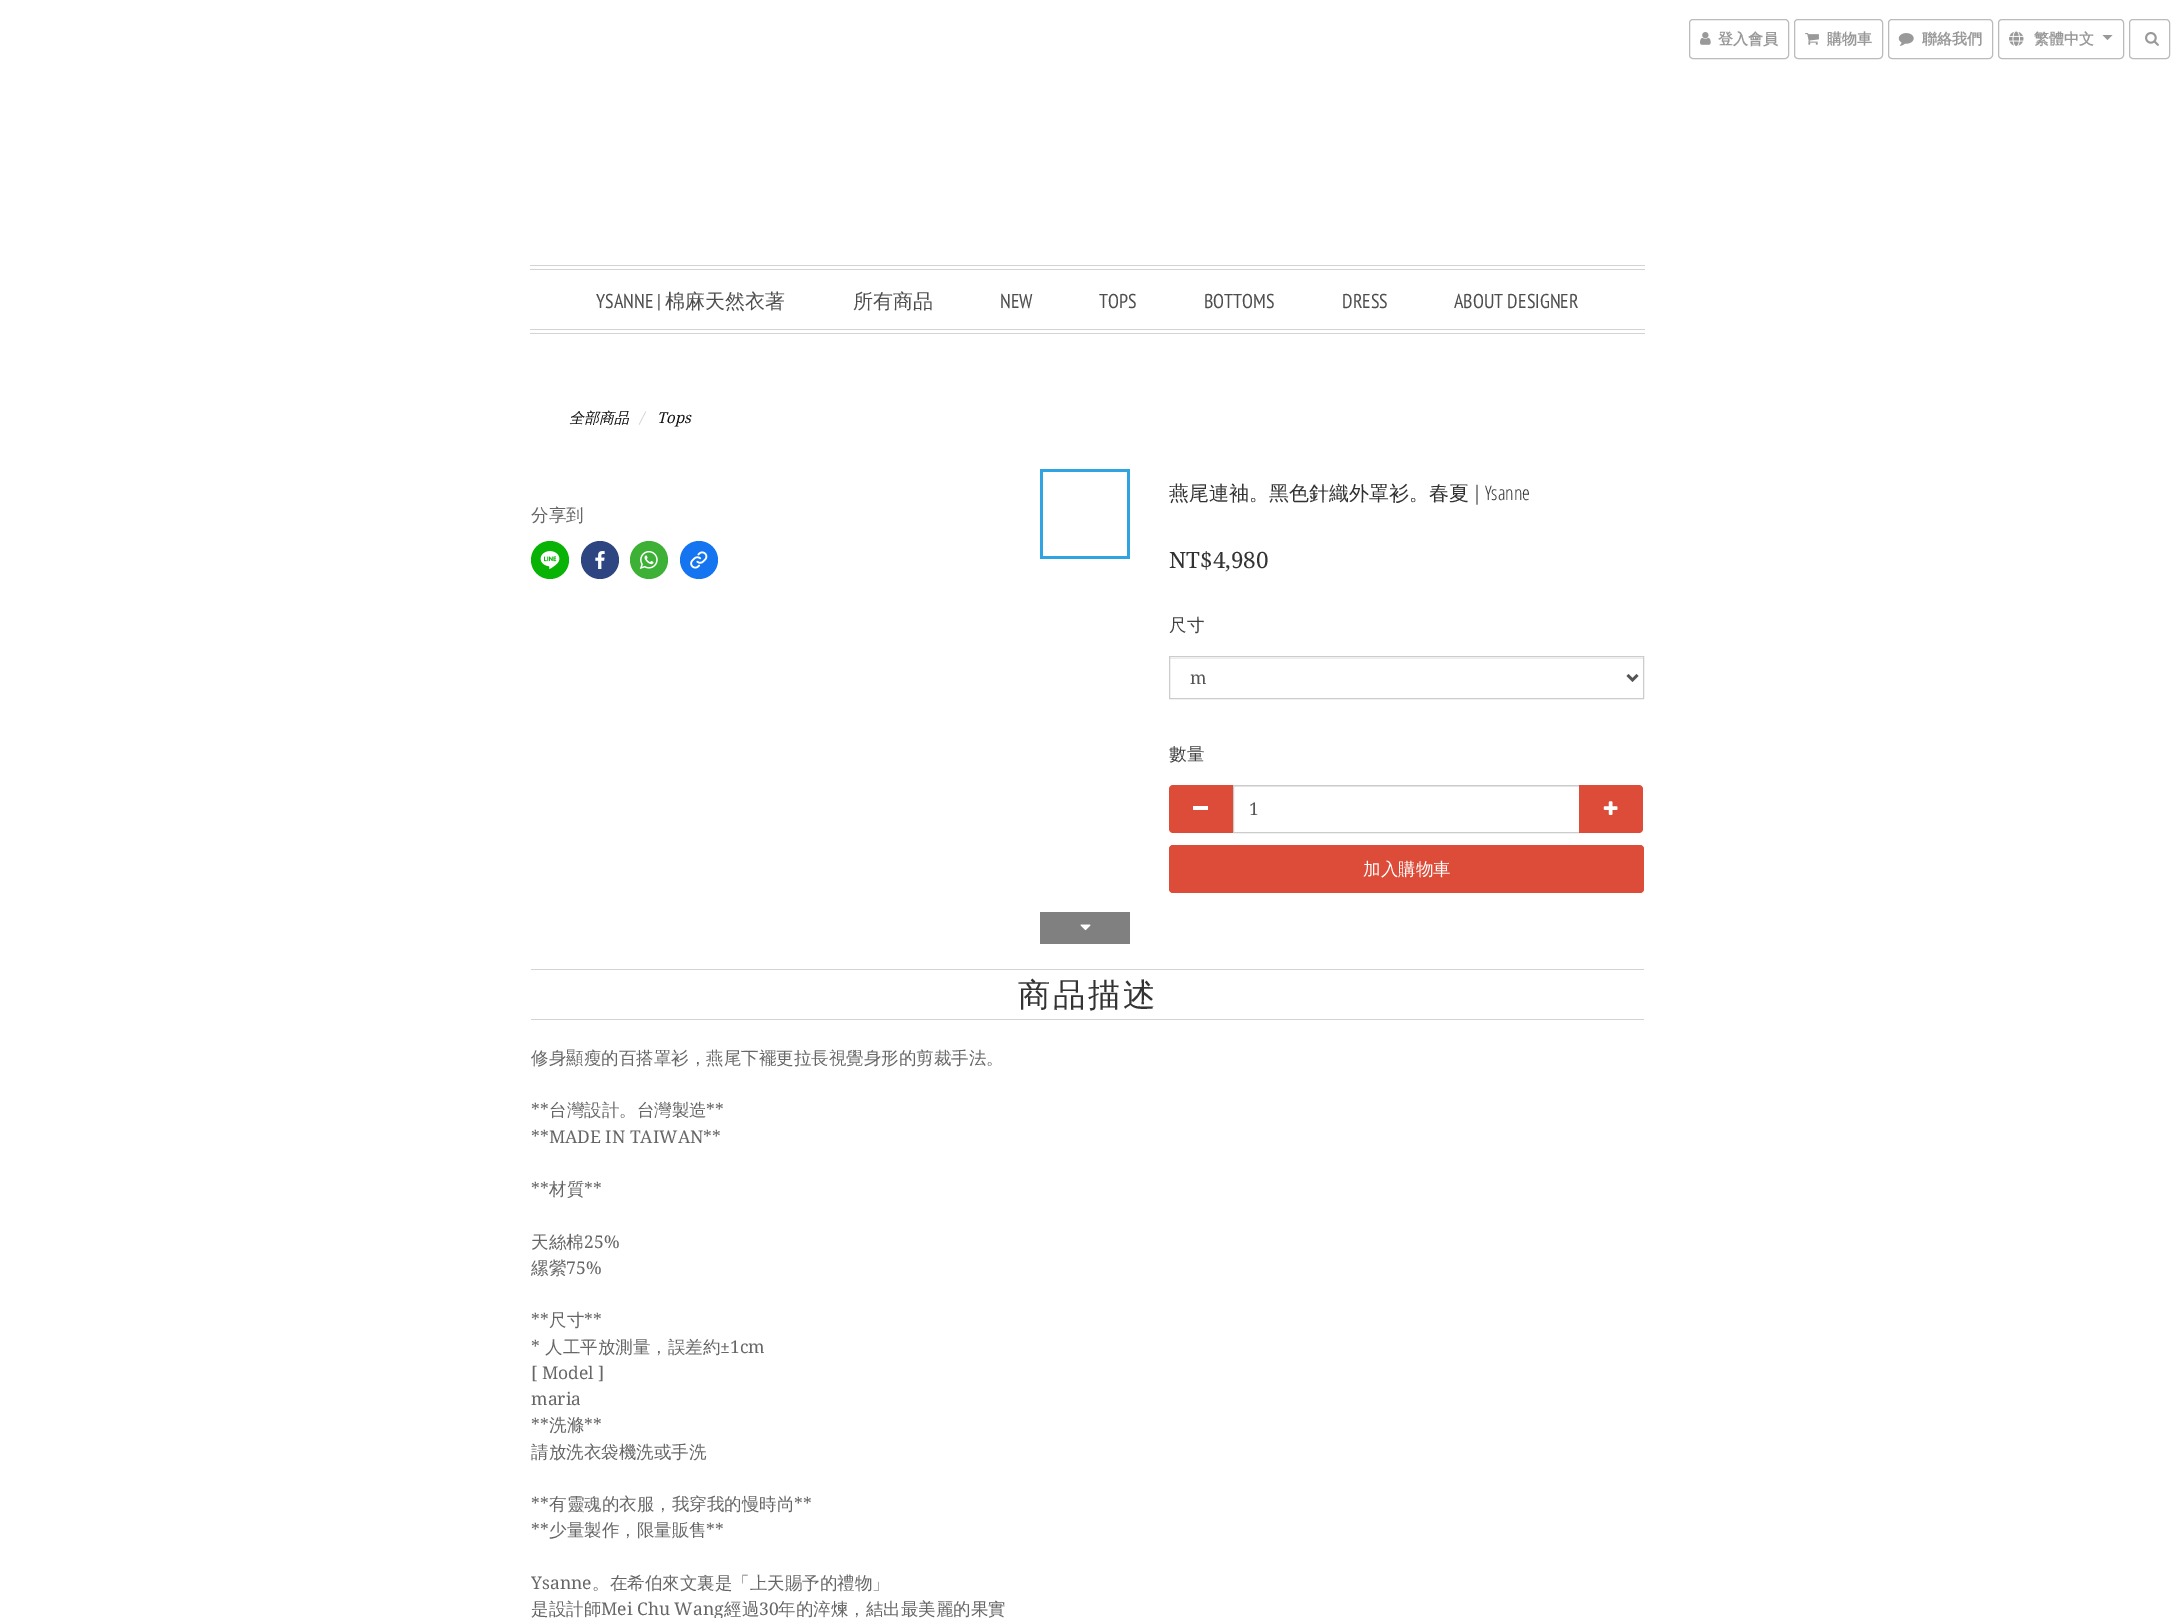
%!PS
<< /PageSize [2175 1618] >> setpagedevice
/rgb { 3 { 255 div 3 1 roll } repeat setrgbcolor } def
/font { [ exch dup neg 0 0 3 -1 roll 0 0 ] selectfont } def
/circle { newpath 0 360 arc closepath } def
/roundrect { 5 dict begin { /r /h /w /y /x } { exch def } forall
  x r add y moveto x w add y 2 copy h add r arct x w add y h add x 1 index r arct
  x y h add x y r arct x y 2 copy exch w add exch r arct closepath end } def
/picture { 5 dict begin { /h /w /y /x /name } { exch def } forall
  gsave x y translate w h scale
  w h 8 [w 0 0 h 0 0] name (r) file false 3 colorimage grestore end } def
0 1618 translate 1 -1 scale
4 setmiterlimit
255 255 255 rgb
0 0 2175 1618 rectfill
187 187 187 rgb
1689.5 19.5 99 39 3.5 roundrect stroke
(img/1.rgb) 1700 32 11 13 picture
1794.5 19.5 88 39 3.5 roundrect stroke
(img/2.rgb) 1805 33 14 12 picture
1888.5 19.5 104 39 3.5 roundrect stroke
(img/3.rgb) 1898 33 16 13 picture
1998.5 19.5 125 39 3.5 roundrect stroke
(img/4.rgb) 2009 31 15 15 picture
153 153 153 rgb
2102.5 35 moveto 2112.5 35 lineto 2107.5 40 lineto closepath fill
187 187 187 rgb
2129.5 19.5 40 39 3.5 roundrect stroke
(img/5.rgb) 2145 32 14 14 picture
[
  [530 265 1115 1 211 211 211]
  [530 269 1115 1 211 211 211]
  [530 329 1115 1 211 211 211]
  [530 333 1115 1 211 211 211]
] { aload pop rgb rectfill } forall
9 179 5 rgb
550 560 19 circle fill
(img/6.rgb) 540 551 20 18 picture
45 70 130 rgb
600 560 19 circle fill
(img/7.rgb) 595 551 10 18 picture
60 177 54 rgb
649 560 19 circle fill
(img/8.rgb) 639 551 19 18 picture
21 117 240 rgb
699 560 19 circle fill
(img/9.rgb) 690 551 18 18 picture
48 164 225 rgb
1040 559 moveto 1040 469 lineto 1130 469 lineto 1130 559 lineto closepath 1043 472 moveto 1043 556 lineto 1127 556 lineto 1127 472 lineto closepath eofill
128 128 128 rgb
1040 912 90 32 rectfill
(img/10.rgb) 1080 924 11 7 picture
236 236 236 rgb
1170 658 473 1 rectfill
204 204 204 rgb
1169.5 656.5 474 42 rectstroke
85 85 85 rgb
2.5 setlinewidth
1627.5 675 moveto 1632.5 680 lineto 1637.5 675 lineto stroke
221 75 57 rgb
1173 785 moveto 1233 785 lineto 1233 833 lineto 1173 833 lineto 1171 833 1169 831 1169 829 curveto 1169 789 lineto 1169 787 1171 785 1173 785 curveto closepath fill
255 255 255 rgb
1193 806 15 4 rectfill
236 236 236 rgb
1234 786 345 1 rectfill
204 204 204 rgb
1 setlinewidth
1233.5 785.5 346 47 rectstroke
221 75 57 rgb
1579 785 moveto 1639 785 lineto 1641 785 1643 787 1643 789 curveto 1643 829 lineto 1643 831 1641 833 1639 833 curveto 1579 833 lineto closepath fill
(img/11.rgb) 1603 801 15 14 picture
1169 845 475 48 4 roundrect fill
211 211 211 rgb
531 969 1113 1 rectfill
531 1019 1113 1 rectfill
/WenQuanYiZenHei-Bold 15 font
153 153 153 rgb
[
  [(登入會員) 1718 44]
  [(購物車) 1827 44]
  [(聯絡我們) 1922 44]
  [(繁體中文) 2034 44]
] { aload pop moveto show } forall
/PTSansNarrow-Regular 20 font
78 78 78 rgb
596 308 moveto (YSANNE |) show
/WenQuanYiZenHei-Medium 20 font
665 308 moveto (棉麻天然衣著) show
853 308 moveto (所有商品) show
/PTSansNarrow-Regular 20 font
[
  [(NEW) 1000 308]
  [(TOPS) 1099 308]
  [(BOTTOMS) 1204 308]
  [(DRESS) 1342 308]
  [(ABOUT DESIGNER) 1454 308]
] { aload pop moveto show } forall
/WenQuanYiZenHei-MediumItalic 15 font
17 17 17 rgb
569 423 moveto (全部商品) show
/DroidSerif-Italic 15 font
204 204 204 rgb
639 423 moveto (/) show
17 17 17 rgb
657 423 moveto (Tops) show
/WenQuanYiZenHei-Medium 17.5 font
102 102 102 rgb
531 521 moveto (分享到) show
/WenQuanYiZenHei-Medium 20 font
51 51 51 rgb
1169 500 moveto (燕尾連袖。黑色針織外罩衫。春夏) show
/OpenSans-Light 20 font
1473 500 moveto (| Ysanne) show
/DroidSerif-Regular 22.5 font
1169 568 moveto (NT$4,980) show
/WenQuanYiZenHei-Medium 17.5 font
64 64 64 rgb
1169 631 moveto (尺寸) show
/DroidSerif-Regular 17.5 font
85 85 85 rgb
1190 684 moveto (m) show
/WenQuanYiZenHei-Medium 17.5 font
64 64 64 rgb
1169 760 moveto (數量) show
/DroidSerif-Regular 17.5 font
85 85 85 rgb
1249 815 moveto (1) show
/WenQuanYiZenHei-Medium 17.5 font
255 255 255 rgb
1363 875 moveto (加入購物車) show
/WenQuanYiZenHei-Medium 32.5 font
51 51 51 rgb
1018 1006 moveto 2.5 0 (商品描述) ashow
/WenQuanYiZenHei-Medium 17.5 font
102 102 102 rgb
531 1064 moveto (修身顯瘦的百搭罩衫，燕尾下襬更拉長視覺身形的剪裁手法。) show
/DroidSerif-Regular 17.5 font
531 1116 moveto (**) show
/WenQuanYiZenHei-Medium 17.5 font
549 1116 moveto (台灣設計。台灣製造) show
/DroidSerif-Regular 17.5 font
[
  [(**) 706 1116]
  [(**MADE IN TAIWAN**) 531 1143]
  [(**) 531 1195]
] { aload pop moveto show } forall
/WenQuanYiZenHei-Medium 17.5 font
549 1195 moveto (材質) show
/DroidSerif-Regular 17.5 font
584 1195 moveto (**) show
/WenQuanYiZenHei-Medium 17.5 font
531 1248 moveto (天絲棉) show
/DroidSerif-Regular 17.5 font
584 1248 moveto (25%) show
/WenQuanYiZenHei-Medium 17.5 font
531 1274 moveto (縲縈) show
/DroidSerif-Regular 17.5 font
566 1274 moveto (75%) show
531 1326 moveto (**) show
/WenQuanYiZenHei-Medium 17.5 font
549 1326 moveto (尺寸) show
/DroidSerif-Regular 17.5 font
584 1326 moveto (**) show
531 1353 moveto (*) show
/WenQuanYiZenHei-Medium 17.5 font
545 1353 moveto (人工平放測量，誤差約) show
/DroidSerif-Regular 17.5 font
[
  [(±1cm) 720 1353]
  [([ Model ]) 531 1379]
  [(maria) 531 1405]
  [(**) 531 1431]
] { aload pop moveto show } forall
/WenQuanYiZenHei-Medium 17.5 font
549 1431 moveto (洗滌) show
/DroidSerif-Regular 17.5 font
584 1431 moveto (**) show
/WenQuanYiZenHei-Medium 17.5 font
531 1458 moveto (請放洗衣袋機洗或手洗) show
/DroidSerif-Regular 17.5 font
531 1510 moveto (**) show
/WenQuanYiZenHei-Medium 17.5 font
549 1510 moveto (有靈魂的衣服，我穿我的慢時尚) show
/DroidSerif-Regular 17.5 font
794 1510 moveto (**) show
531 1536 moveto (**) show
/WenQuanYiZenHei-Medium 17.5 font
549 1536 moveto (少量製作，限量販售) show
/DroidSerif-Regular 17.5 font
706 1536 moveto (**) show
531 1589 moveto (Ysanne) show
/WenQuanYiZenHei-Medium 17.5 font
592 1589 moveto (。在希伯來文裏是「上天賜予的禮物」) show
531 1615 moveto (是設計師) show
/DroidSerif-Regular 17.5 font
601 1615 moveto (Mei Chu Wang) show
/WenQuanYiZenHei-Medium 17.5 font
724 1615 moveto (經過) show
/DroidSerif-Regular 17.5 font
759 1615 moveto (30) show
/WenQuanYiZenHei-Medium 17.5 font
778 1615 moveto (年的淬煉，結出最美麗的果實) show
showpage
